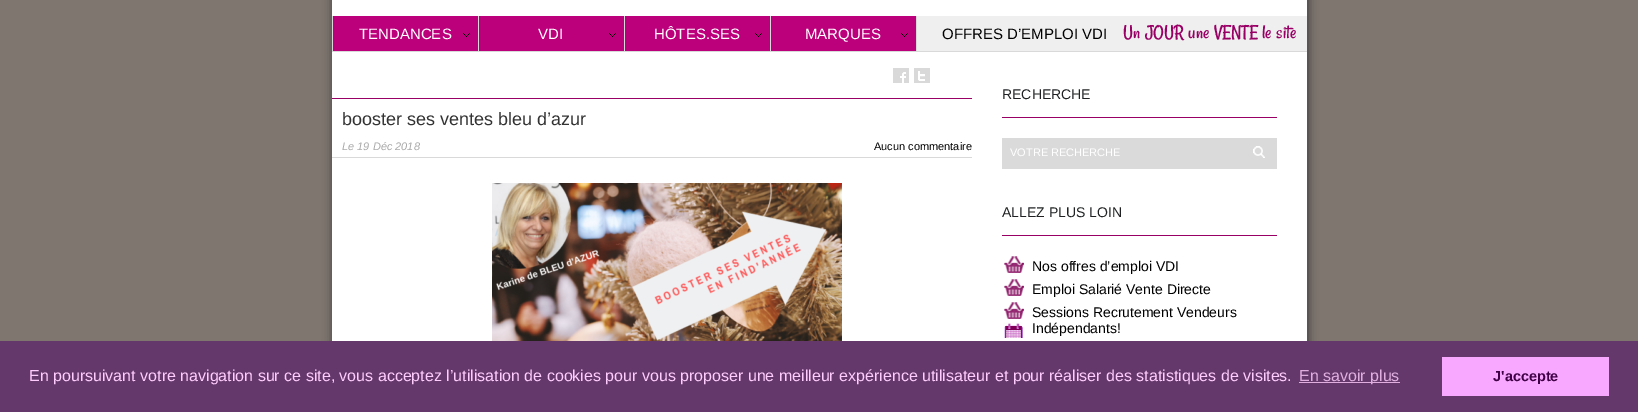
%!PS
<< /PageSize [1638 412] /PageUsesTransparency true >> setpagedevice
/rgb { 3 { 255 div 3 1 roll } repeat setrgbcolor } def
/font { [ exch dup neg 0 0 3 -1 roll 0 0 ] selectfont } def
/alpha { dup .setfillconstantalpha .setstrokeconstantalpha } def
/roundrect { 5 dict begin { /r /h /w /y /x } { exch def } forall
  x r add y moveto x w add y 2 copy h add r arct x w add y h add x 1 index r arct
  x y h add x y r arct x y 2 copy exch w add exch r arct closepath end } def
/shadow { 12 dict begin { /a /b /q /h /w /y /x } { exch def } forall gsave /was 0 def
  9 -2 -9 { dup b mul 4 div /e exch def 1 sub .425 mul 2.718 exch exp 1 add a .99 .min exch div /now exch def
    1 1 now sub 1 was sub div sub alpha /was now def
    w h .min e 2 mul add 0 gt { x e sub y e sub w e 2 mul add h e 2 mul add
      q e add b .6 mul add w h .min 2 div e add .min 0 .max roundrect fill } if } for grestore end } def
/picture { 5 dict begin { /h /w /y /x /name } { exch def } forall
  gsave x y translate w h scale
  w h 8 [w 0 0 h 0 0] name (r) file false 3 colorimage grestore end } def
0 .pushpdf14devicefilter
0 412 translate 1 -1 scale
4 setmiterlimit
127 118 112 rgb
0 0 1638 412 rectfill
51 51 51 rgb
333 -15 975 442 0 5 1 shadow
[
  [332 0 975 341 255 255 255]
  [917 16 390 35 239 239 239]
  [332 51 975 1 217 217 217]
  [333 16 145 35 188 0 124]
  [332 16 1 35 217 217 217]
] { aload pop rgb rectfill } forall
(img/1.rgb) 463 33 7 4 picture
188 0 124 rgb
479 16 145 35 rectfill
217 217 217 rgb
478 16 1 35 rectfill
(img/1.rgb) 609 33 7 4 picture
188 0 124 rgb
625 16 145 35 rectfill
217 217 217 rgb
624 16 1 35 rectfill
(img/1.rgb) 755 33 7 4 picture
188 0 124 rgb
771 16 145 35 rectfill
217 217 217 rgb
770 16 1 35 rectfill
(img/1.rgb) 901 33 7 4 picture
916 16 1 35 rectfill
153 0 102 rgb
332 98 640 1 rectfill
(img/2.rgb) 893 68 16 15 picture
(img/3.rgb) 914 68 16 15 picture
217 217 217 rgb
332 157 640 1 rectfill
(img/4.rgb) 492 183 350 158 picture
153 0 102 rgb
1002 117 275 1 rectfill
218 218 218 rgb
1002 138 275 31 rectfill
(img/5.rgb) 1253 146 12 12 picture
153 0 102 rgb
1002 235 275 1 rectfill
(img/6.rgb) 1004 256 20 17 picture
(img/6.rgb) 1004 279 20 17 picture
(img/7.rgb) 1003 302 21 36 picture
[
  [0 341 1638 71 100 56 107]
  [1299 382 101 1 224 175 224]
  [1442 357 167 39 248 168 255]
] { aload pop rgb rectfill } forall
/LiberationSans-Regular 15 font
255 255 255 rgb
[
  [(TENDANCES) 359 39]
  [(VDI) 538 39]
  [(HÔTES.SES) 654 39]
  [(MARQUES) 805 39]
] { aload pop moveto show } forall
0 0 0 rgb
942 39 moveto (OFFRES D’EMPLOI VDI) show
/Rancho-Regular 20 font
153 0 102 rgb
1123 38 moveto (Un JOUR une VENTE le site) show
/LiberationSans-Regular 18 font
51 51 51 rgb
342 125 moveto (booster ses ventes bleu d’azur) show
/LiberationSans-Italic 11 font
170 169 169 rgb
342 150 moveto (Le 19 Déc 2018) show
/LiberationSans-Regular 11 font
0 0 0 rgb
874 150 moveto (Aucun commentaire) show
/LiberationSans-Regular 14 font
31 33 34 rgb
1002 99 moveto (RECHERCHE) show
/LiberationSans-Regular 11 font
255 255 255 rgb
1010 156 moveto (VOTRE RECHERCHE) show
/LiberationSans-Regular 14 font
31 33 34 rgb
1002 217 moveto (ALLEZ PLUS LOIN) show
0 0 0 rgb
[
  [(Nos offres d’emploi VDI) 1032 271]
  [(Emploi Salarié Vente Directe) 1032 294]
  [(Sessions Recrutement Vendeurs) 1032 317]
  [(Indépendants!) 1032 333]
] { aload pop moveto show } forall
/LiberationSans-Regular 16 font
255 205 253 rgb
29 381 moveto (En poursuivant votre navigation sur ce site, vous acceptez l’utilisation de cookies pour vous proposer une meilleur expérience utilisateur et pour réaliser des statistiques de visites.) show
224 175 224 rgb
1299 381 moveto (En savoir plus) show
/LiberationSans-Bold 14.5 font
63 0 69 rgb
1493 381 moveto (J'accepte) show
.poppdf14devicefilter showpage
